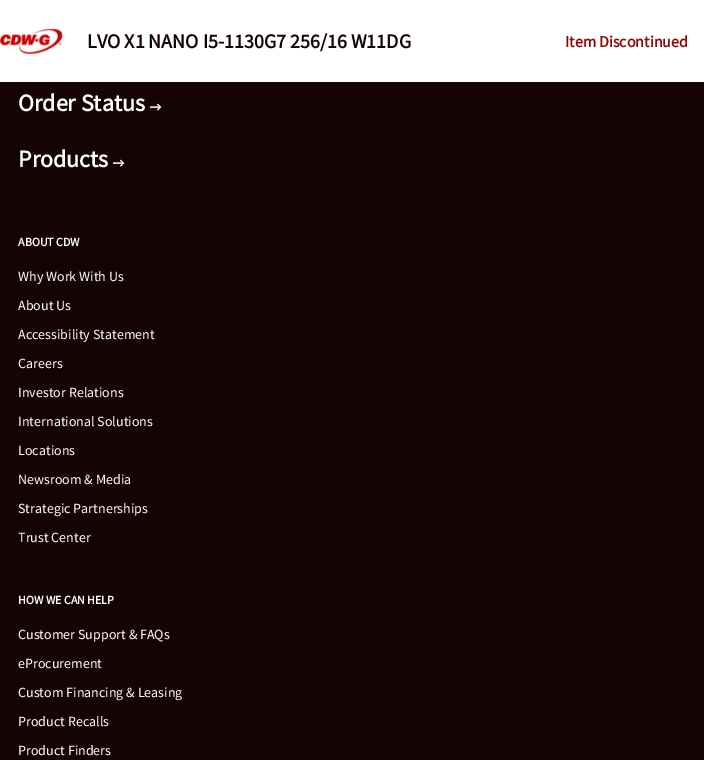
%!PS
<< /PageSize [704 760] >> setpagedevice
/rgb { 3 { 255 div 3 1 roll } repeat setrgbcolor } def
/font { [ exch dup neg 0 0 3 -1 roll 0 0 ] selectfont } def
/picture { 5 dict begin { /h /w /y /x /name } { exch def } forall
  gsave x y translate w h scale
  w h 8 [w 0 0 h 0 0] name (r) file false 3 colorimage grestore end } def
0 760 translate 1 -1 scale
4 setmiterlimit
21 4 4 rgb
0 0 704 760 rectfill
255 255 255 rgb
0 0 704 82 rectfill
(img/1.rgb) 0 28 63 27 picture
(img/2.rgb) 150 103 12 8 picture
(img/2.rgb) 113 159 12 8 picture
/SourceSansPro-Bold 20 font
21 4 4 rgb
87 48 moveto (LVO X1 NANO I5-1130G7 256/16 W11DG) show
/SourceSansPro-Bold 16 font
139 8 9 rgb
565 47 moveto (Item Discontinued) show
/SourceSansPro-Bold 24 font
255 255 255 rgb
18 111 moveto (Order Status) show
18 167 moveto (Products) show
/SourceSansPro-Bold 12 font
18 246 moveto (ABOUT CDW) show
/SourceSansPro-Regular 14 font
[
  [(Why Work With Us) 18 281]
  [(About Us) 18 310]
  [(Accessibility Statement) 18 339]
  [(Careers) 18 368]
  [(Investor Relations) 18 397]
  [(International Solutions) 18 426]
  [(Locations) 18 455]
  [(Newsroom & Media) 18 484]
  [(Strategic Partnerships) 18 513]
  [(Trust Center) 18 542]
] { aload pop moveto show } forall
/SourceSansPro-Bold 12 font
18 604 moveto (HOW WE CAN HELP) show
/SourceSansPro-Regular 14 font
[
  [(Customer Support & FAQs) 18 639]
  [(eProcurement) 18 668]
  [(Custom Financing & Leasing) 18 697]
  [(Product Recalls) 18 726]
  [(Product Finders) 18 755]
] { aload pop moveto show } forall
showpage
